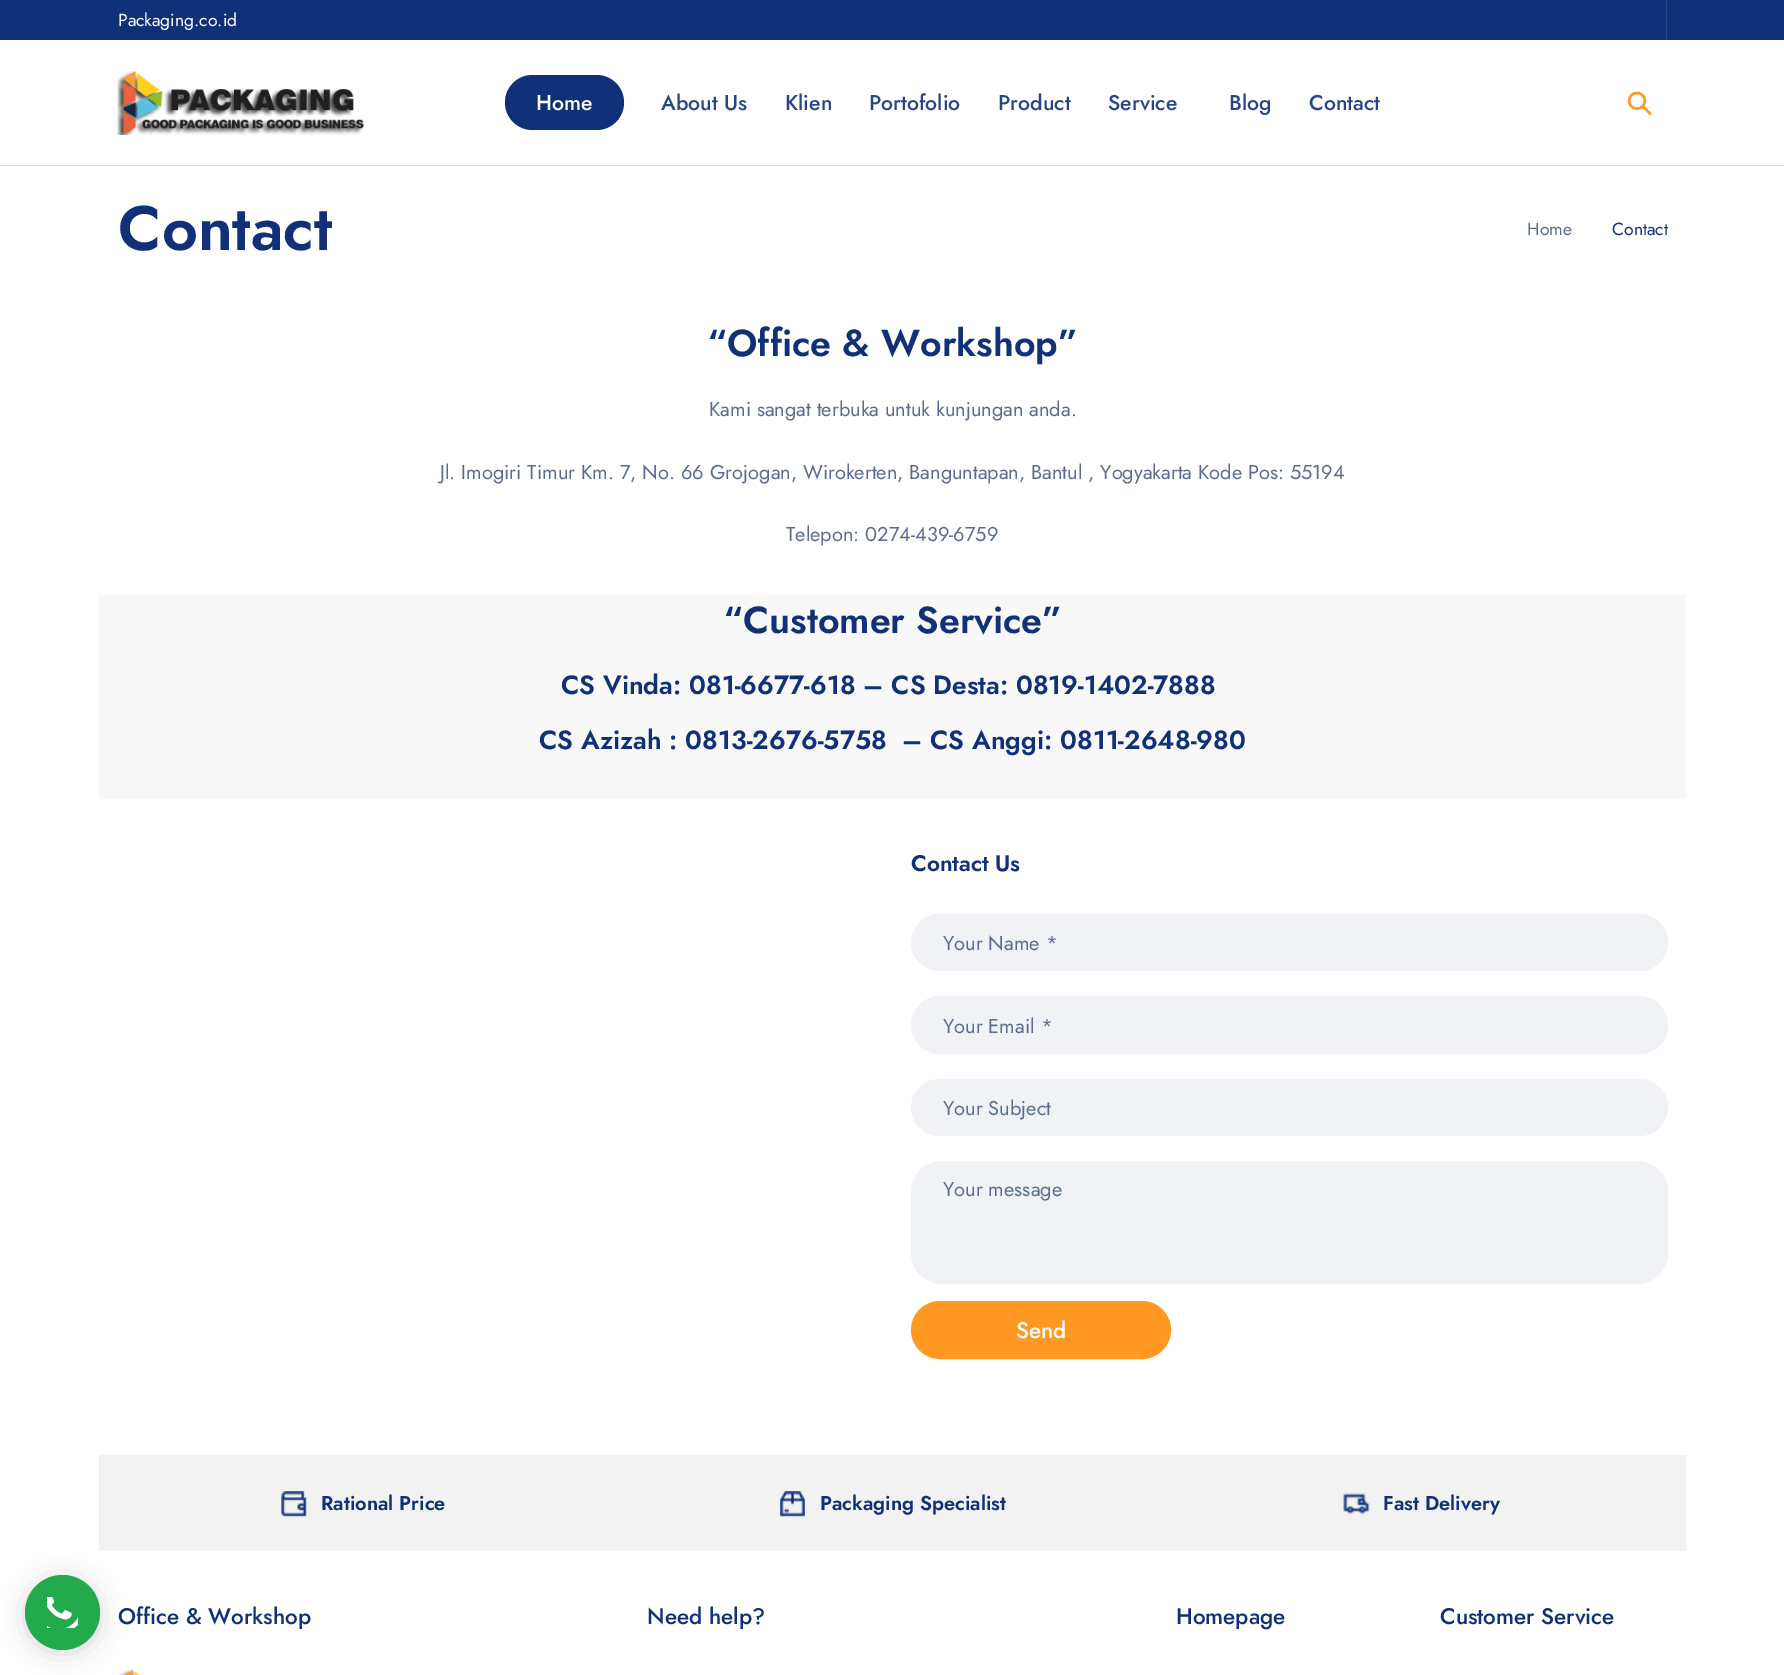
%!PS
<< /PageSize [1784 1675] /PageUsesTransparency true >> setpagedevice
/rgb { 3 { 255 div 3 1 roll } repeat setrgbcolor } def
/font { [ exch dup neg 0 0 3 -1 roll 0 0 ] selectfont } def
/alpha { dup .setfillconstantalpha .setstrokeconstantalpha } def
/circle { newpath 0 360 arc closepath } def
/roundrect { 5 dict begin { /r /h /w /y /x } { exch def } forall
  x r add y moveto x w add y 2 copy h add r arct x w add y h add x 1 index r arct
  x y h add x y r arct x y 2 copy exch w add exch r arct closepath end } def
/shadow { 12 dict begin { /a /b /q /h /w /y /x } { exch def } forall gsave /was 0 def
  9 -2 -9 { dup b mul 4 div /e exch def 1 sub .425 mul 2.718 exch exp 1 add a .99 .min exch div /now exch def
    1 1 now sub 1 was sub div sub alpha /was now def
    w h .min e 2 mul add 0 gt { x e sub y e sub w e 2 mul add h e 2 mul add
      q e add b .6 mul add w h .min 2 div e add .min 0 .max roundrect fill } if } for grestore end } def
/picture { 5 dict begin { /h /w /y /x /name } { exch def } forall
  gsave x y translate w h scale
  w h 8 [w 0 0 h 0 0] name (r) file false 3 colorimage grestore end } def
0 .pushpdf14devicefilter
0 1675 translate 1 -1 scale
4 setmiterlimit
255 255 255 rgb
0 0 1784 1675 rectfill
242 242 242 rgb
99 1455 1587 96 rectfill
(img/6.rgb) 119 1668 22 7 picture
gsave
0 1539 moveto 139 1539 lineto 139 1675 lineto 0 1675 lineto closepath 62.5 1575 moveto 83 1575 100 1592 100 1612.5 curveto 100 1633 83 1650 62.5 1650 curveto 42 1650 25 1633 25 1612.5 curveto 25 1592 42 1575 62.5 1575 curveto closepath eoclip newpath
0 0 0 rgb
25 1578 75 75 37.5 12.5 0.16 shadow
grestore
0.9 alpha
11 161 56 rgb
62.5 1612.5 37.5 circle fill
1 alpha
(img/1.rgb) 47 1597 31 31 picture
[
  [0 0 1784 40 16 49 120]
  [1666 0 1 40 40 70 134]
  [0 165 1784 1 217 222 232]
] { aload pop rgb rectfill } forall
(img/2.rgb) 117 71 247 64 picture
16 49 120 rgb
505 75 119 55 27.5 roundrect fill
255 153 35 rgb
2.4 setlinewidth
1637 108.5 moveto 1647.5 108.5 1647.5 93 1637 93 curveto 1626.5 93 1626.5 108.5 1637 108.5 curveto closepath 1651 114.5 moveto 1642.5 106 lineto stroke
248 248 248 rgb
99 595 1587 204 rectfill
240 242 245 rgb
911 914 757 57 28.5 roundrect fill
911 996 757 58 29 roundrect fill
911 1079 757 57 28.5 roundrect fill
911 1161 757 123 31 roundrect fill
255 153 35 rgb
911.5 1301.5 259 57 28.5 roundrect gsave fill grestore
1 setlinewidth
stroke
(img/3.rgb) 281 1491 26 26 picture
(img/4.rgb) 780 1491 25 26 picture
(img/5.rgb) 1343 1493 27 22 picture
/Jost-Regular 17.5 font
255 255 255 rgb
118 26 moveto (Packaging.co.id) show
/Jost-Medium 21.25 font
536 110 moveto (Home) show
40 70 134 rgb
[
  [(About Us) 661 110]
  [(Klien) 785 110]
  [(Portofolio) 869 110]
  [(Product) 998 110]
  [(Service) 1108 110]
  [(Blog) 1229 110]
  [(Contact) 1309 110]
] { aload pop moveto show } forall
/Jost-SemiBold 62.5 font
16 49 120 rgb
118 250 moveto (Contact) show
/Jost-Regular 17.5 font
91 108 143 rgb
1527 235 moveto (Home) show
16 49 120 rgb
1612 235 moveto (Contact) show
/Jost-SemiBold 37.5 font
707 356 moveto (“Office & Workshop”) show
/Jost-Regular 20 font
91 108 143 rgb
[
  [(Kami sangat terbuka untuk kunjungan anda.) 709 416]
  [(Jl. Imogiri Timur Km. 7, No. 66 Grojogan, Wirokerten, Banguntapan, Bantul , Yogyakarta Kode Pos: 55194) 440 479]
  [(Telepon: 0274-439-6759) 786 541]
] { aload pop moveto show } forall
/Jost-SemiBold 37.5 font
16 49 120 rgb
723 633 moveto (“Customer Service”) show
/Jost-SemiBold 26.25 font
[
  [(CS Vinda: 081-6677-618 – CS Desta: 0819-1402-7888) 561 694]
  [(CS Azizah : 0813-2676-5758) 539 749]
  [(– CS Anggi: 0811-2648-980) 902 749]
] { aload pop moveto show } forall
/Jost-SemiBold 22.5 font
911 871 moveto (Contact Us) show
/Jost-Regular 20 font
91 108 143 rgb
[
  [(Your Name *) 943 950]
  [(Your Email *) 943 1033]
  [(Your Subject) 943 1115]
  [(Your message) 943 1196]
] { aload pop moveto show } forall
/Jost-Medium 22.5 font
255 255 255 rgb
1016 1338 moveto (Send) show
/Jost-SemiBold 20 font
16 49 120 rgb
[
  [(Rational Price) 321 1510]
  [(Packaging Specialist) 820 1510]
  [(Fast Delivery) 1383 1510]
] { aload pop moveto show } forall
/Jost-Medium 22.5 font
[
  [(Office & Workshop) 118 1624]
  [(Need help?) 647 1624]
  [(Homepage) 1176 1624]
  [(Customer Service) 1440 1624]
] { aload pop moveto show } forall
.poppdf14devicefilter showpage
